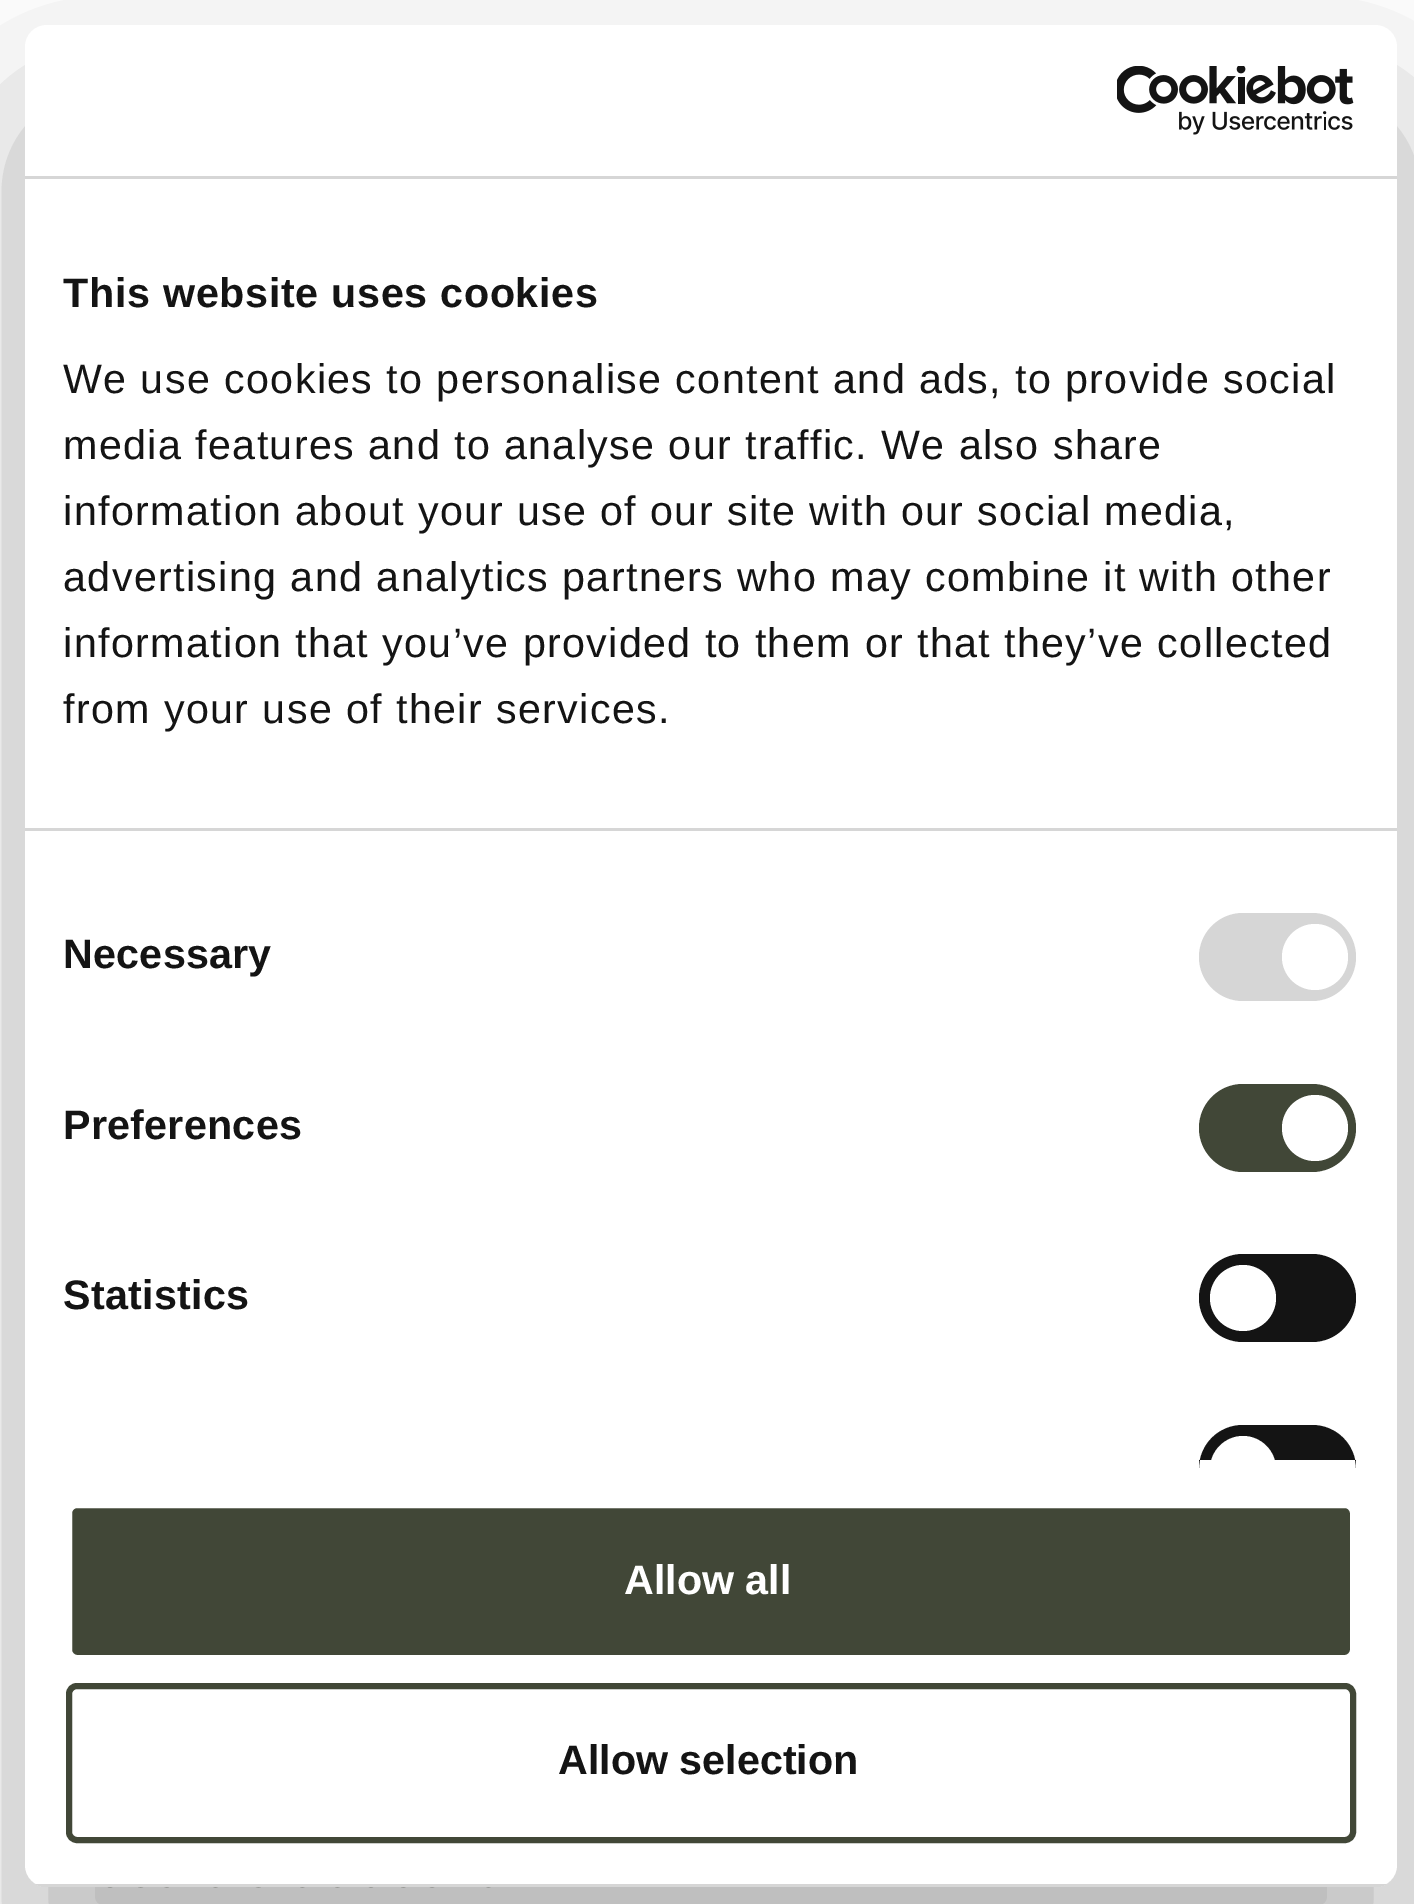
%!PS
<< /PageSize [1414 1904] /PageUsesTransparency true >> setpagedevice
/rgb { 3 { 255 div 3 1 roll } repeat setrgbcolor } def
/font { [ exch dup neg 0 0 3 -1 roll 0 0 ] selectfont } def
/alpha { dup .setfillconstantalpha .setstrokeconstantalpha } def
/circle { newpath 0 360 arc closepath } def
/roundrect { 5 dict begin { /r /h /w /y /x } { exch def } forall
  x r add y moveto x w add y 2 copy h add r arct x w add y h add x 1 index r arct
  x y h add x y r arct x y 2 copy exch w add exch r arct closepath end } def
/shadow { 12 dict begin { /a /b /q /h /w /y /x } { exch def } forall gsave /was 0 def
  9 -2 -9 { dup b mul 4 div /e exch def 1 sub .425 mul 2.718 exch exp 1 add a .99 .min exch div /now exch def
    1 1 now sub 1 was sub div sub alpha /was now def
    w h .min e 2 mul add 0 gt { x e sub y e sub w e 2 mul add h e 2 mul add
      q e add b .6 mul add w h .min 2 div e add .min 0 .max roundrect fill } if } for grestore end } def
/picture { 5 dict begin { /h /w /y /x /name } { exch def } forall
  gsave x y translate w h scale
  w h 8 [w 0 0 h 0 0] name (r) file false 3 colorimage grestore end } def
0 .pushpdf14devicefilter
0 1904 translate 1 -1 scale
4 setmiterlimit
255 255 255 rgb
0 0 1414 1904 rectfill
(img/2.rgb) 107 1887 384 1 picture
gsave
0 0 moveto 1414 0 lineto 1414 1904 lineto 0 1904 lineto closepath 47 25 moveto 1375 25 lineto 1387 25 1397 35 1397 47 curveto 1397 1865 lineto 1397 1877 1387 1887 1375 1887 curveto 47 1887 lineto 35 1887 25 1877 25 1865 curveto 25 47 lineto 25 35 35 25 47 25 curveto closepath eoclip newpath
0 0 0 rgb
25 113 1372 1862 22 93.5 0.3 shadow
grestore
25 25 1372 1862 22 roundrect fill
214 214 214 rgb
25 176 1372 3 rectfill
(img/1.rgb) 1117 66 237 69 picture
25 828 1372 3 rectfill
1199 913 157 88 44 roundrect fill
255 255 255 rgb
1315 957 33 circle fill
65 71 55 rgb
1199 1084 157 88 44 roundrect fill
255 255 255 rgb
1315 1128 33 circle fill
20 20 20 rgb
1199 1254 157 88 44 roundrect fill
255 255 255 rgb
1243 1298 33 circle fill
20 20 20 rgb
1243 1425 moveto 1312 1425 lineto 1336.5 1425 1356 1444.5 1356 1469 curveto 1356 1460 lineto 1199 1460 lineto 1199 1469 lineto 1199 1444.5 1218.5 1425 1243 1425 curveto closepath fill
255 255 255 rgb
1243 1436 moveto 1261 1436 1276 1451 1276 1469 curveto 1276 1460 lineto 1210 1460 lineto 1210 1469 lineto 1210 1451 1225 1436 1243 1436 curveto closepath fill
gsave
25 25 1372 1862 22 roundrect clip newpath
214 214 214 rgb
36 1884 1350 3 rectfill
grestore
65 71 55 rgb
69 1505 1284 153 8 roundrect gsave fill grestore
255 255 255 rgb
6 setlinewidth
stroke
65 71 55 rgb
69 1686 1284 154 8 roundrect stroke
/LiberationSans-Bold 41.25 font
20 20 20 rgb
63 307 moveto 0.7 0 (This website uses cookies) ashow
/LiberationSans-Regular 41.25 font
63 393 moveto 1.38 0 (We use cookies to personalise content and ads, to provide social) ashow
63 459 moveto 1.38 0 (media features and to analyse our traffic. We also share) ashow
63 525 moveto 1.38 0 (information about your use of our site with our social media,) ashow
63 591 moveto 1.38 0 (advertising and analytics partners who may combine it with other) ashow
63 657 moveto 1.38 0 (information that you’ve provided to them or that they’ve collected) ashow
63 723 moveto 1.38 0 (from your use of their services.) ashow
/LiberationSans-Bold 41.25 font
63 968 moveto 0.25 0 (Necessary) ashow
63 1139 moveto 0.25 0 (Preferences) ashow
63 1309 moveto 0.25 0 (Statistics) ashow
255 255 255 rgb
624 1594 moveto (Allow all) show
20 20 20 rgb
558 1774 moveto (Allow selection) show
.poppdf14devicefilter showpage
